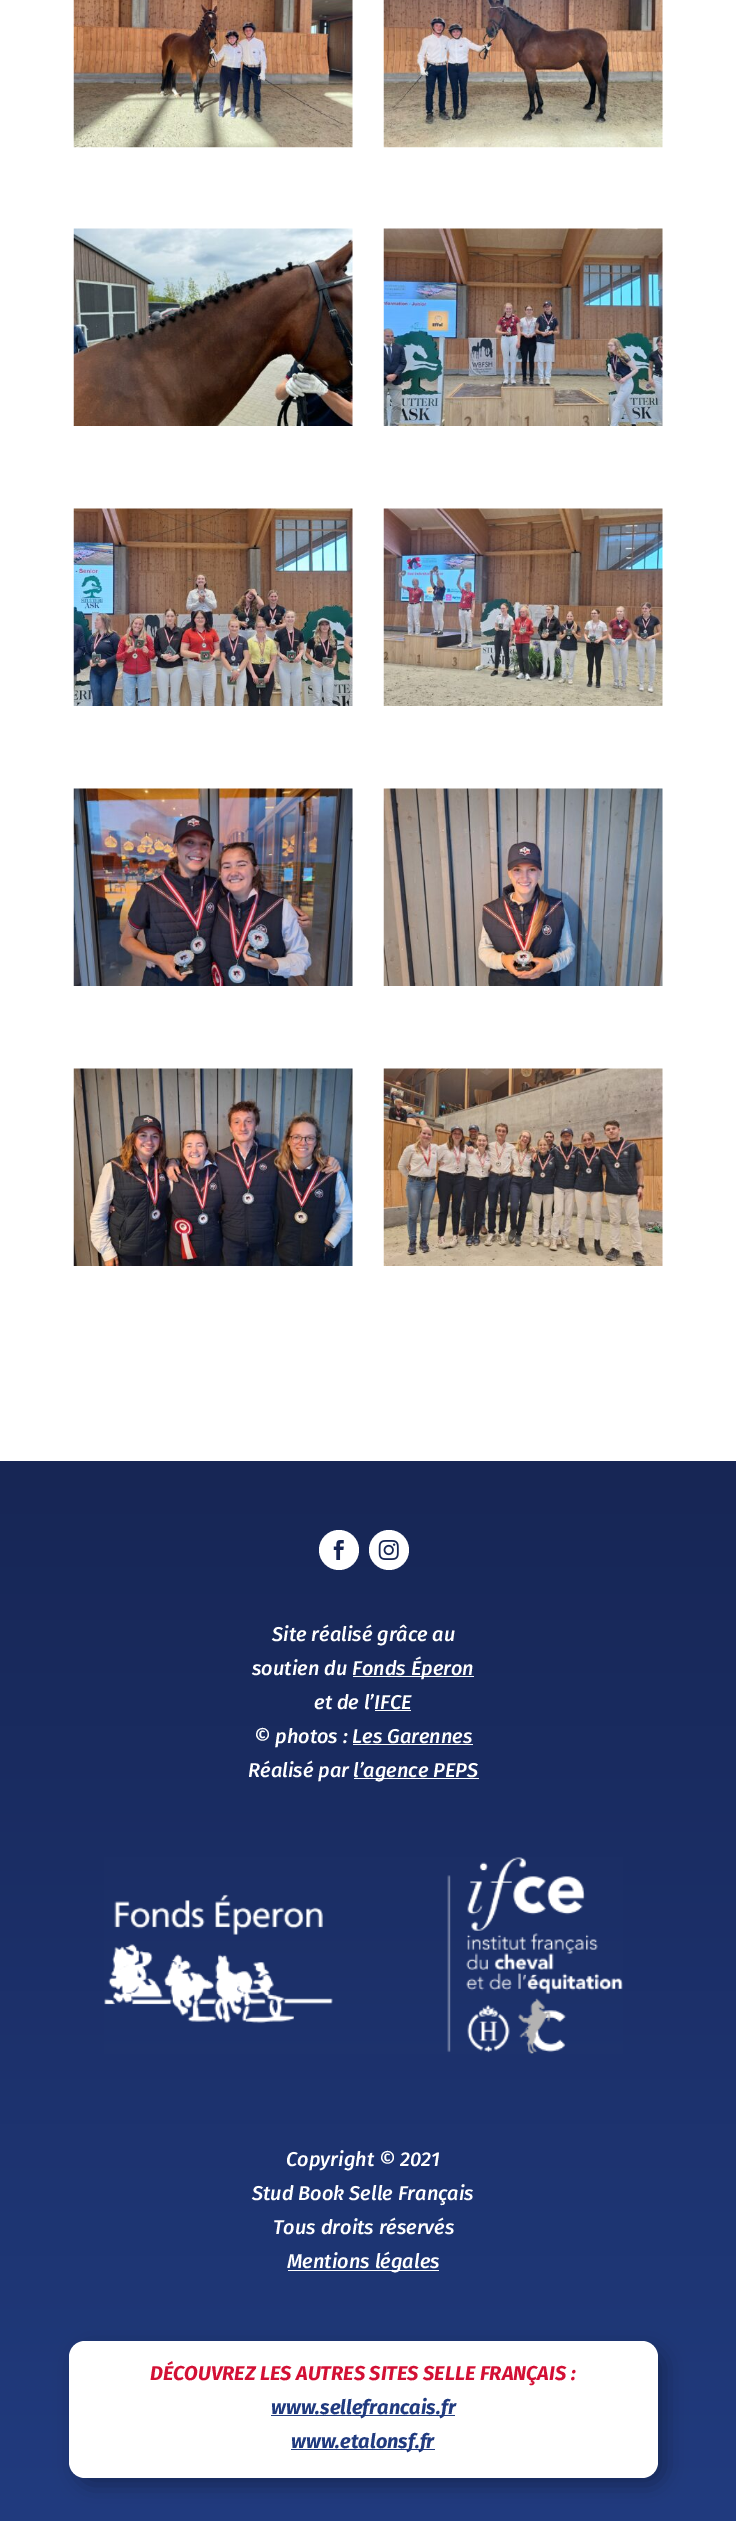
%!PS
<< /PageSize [736 2521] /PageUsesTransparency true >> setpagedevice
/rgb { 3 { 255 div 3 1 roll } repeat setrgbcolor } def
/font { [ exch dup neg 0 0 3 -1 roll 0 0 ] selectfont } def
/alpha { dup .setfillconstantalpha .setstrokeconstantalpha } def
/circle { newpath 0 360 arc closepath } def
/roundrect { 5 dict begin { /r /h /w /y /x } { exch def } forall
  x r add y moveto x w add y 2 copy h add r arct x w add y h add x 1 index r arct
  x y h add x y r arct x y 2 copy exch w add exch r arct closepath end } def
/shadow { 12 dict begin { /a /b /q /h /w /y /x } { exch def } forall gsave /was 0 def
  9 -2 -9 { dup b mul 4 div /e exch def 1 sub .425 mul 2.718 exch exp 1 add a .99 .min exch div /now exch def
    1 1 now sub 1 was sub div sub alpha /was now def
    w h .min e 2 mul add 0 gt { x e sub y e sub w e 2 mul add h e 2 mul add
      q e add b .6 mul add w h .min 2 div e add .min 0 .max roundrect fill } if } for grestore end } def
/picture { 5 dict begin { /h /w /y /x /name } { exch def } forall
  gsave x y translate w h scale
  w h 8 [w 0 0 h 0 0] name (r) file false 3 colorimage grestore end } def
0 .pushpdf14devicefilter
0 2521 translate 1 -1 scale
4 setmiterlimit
255 255 255 rgb
0 0 736 2521 rectfill
(img/1.rgb) 73 0 280 148 picture
(img/2.rgb) 383 0 280 148 picture
(img/3.rgb) 73 228 280 198 picture
(img/4.rgb) 383 228 280 198 picture
(img/5.rgb) 73 508 280 198 picture
(img/6.rgb) 383 508 280 198 picture
(img/7.rgb) 73 788 280 198 picture
(img/8.rgb) 383 788 280 198 picture
(img/9.rgb) 73 1068 280 198 picture
(img/10.rgb) 383 1068 280 198 picture
gsave 0 1461 moveto 736 1461 lineto 736 2521 lineto 0 2521 lineto closepath clip newpath
<< /ShadingType 2 /ColorSpace /DeviceRGB /Coords [368 1461 368 2521] /Extend [true true] /Function << /FunctionType 2 /Domain [0 1] /C0 [0.09 0.149 0.333] /C1 [0.129 0.231 0.498] /N 1 >> >> shfill grestore
339 1550 20 circle fill
(img/11.rgb) 333 1540 11 20 picture
389 1550 20 circle fill
(img/12.rgb) 378 1540 21 20 picture
[
  [353 1676 121 1 255 255 255]
  [375 1710 36 1 255 255 255]
  [353 1744 120 1 255 255 255]
  [354 1778 125 1 255 255 255]
] { aload pop rgb rectfill } forall
(img/13.rgb) 104 1857 519 197 picture
288 2270 151 1 rectfill
0 0 0 rgb
76 2349 589 136 16 11 0.3 shadow
255 255 255 rgb
69 2341 589 137 16 roundrect fill
33 59 127 rgb
271 2415 184 1 rectfill
291 2449 144 1 rectfill
/FiraSans-MediumItalic 20 font
255 255 255 rgb
[
  [(Site réalisé grâce au) 272 1641]
  [(soutien du) 252 1675]
  [(Fonds Éperon) 352 1675]
  [(et de l’IFCE) 314 1709]
  [(© photos : Les Garennes) 254 1743]
  [(Réalisé par) 248 1777]
  [(l’agence PEPS) 353 1777]
  [(Copyright © 2021) 286 2166]
  [(Stud Book Selle Français) 252 2200]
  [(Tous droits réservés) 273 2234]
  [(Mentions légales) 287 2268]
] { aload pop moveto show } forall
/FiraSans-BoldItalic 20 font
211 16 53 rgb
150 2380 moveto (DÉCOUVREZ LES AUTRES SITES SELLE FRANÇAIS :) show
33 59 127 rgb
271 2414 moveto (www.sellefrancais.fr) show
291 2448 moveto (www.etalonsf.fr) show
.poppdf14devicefilter showpage
